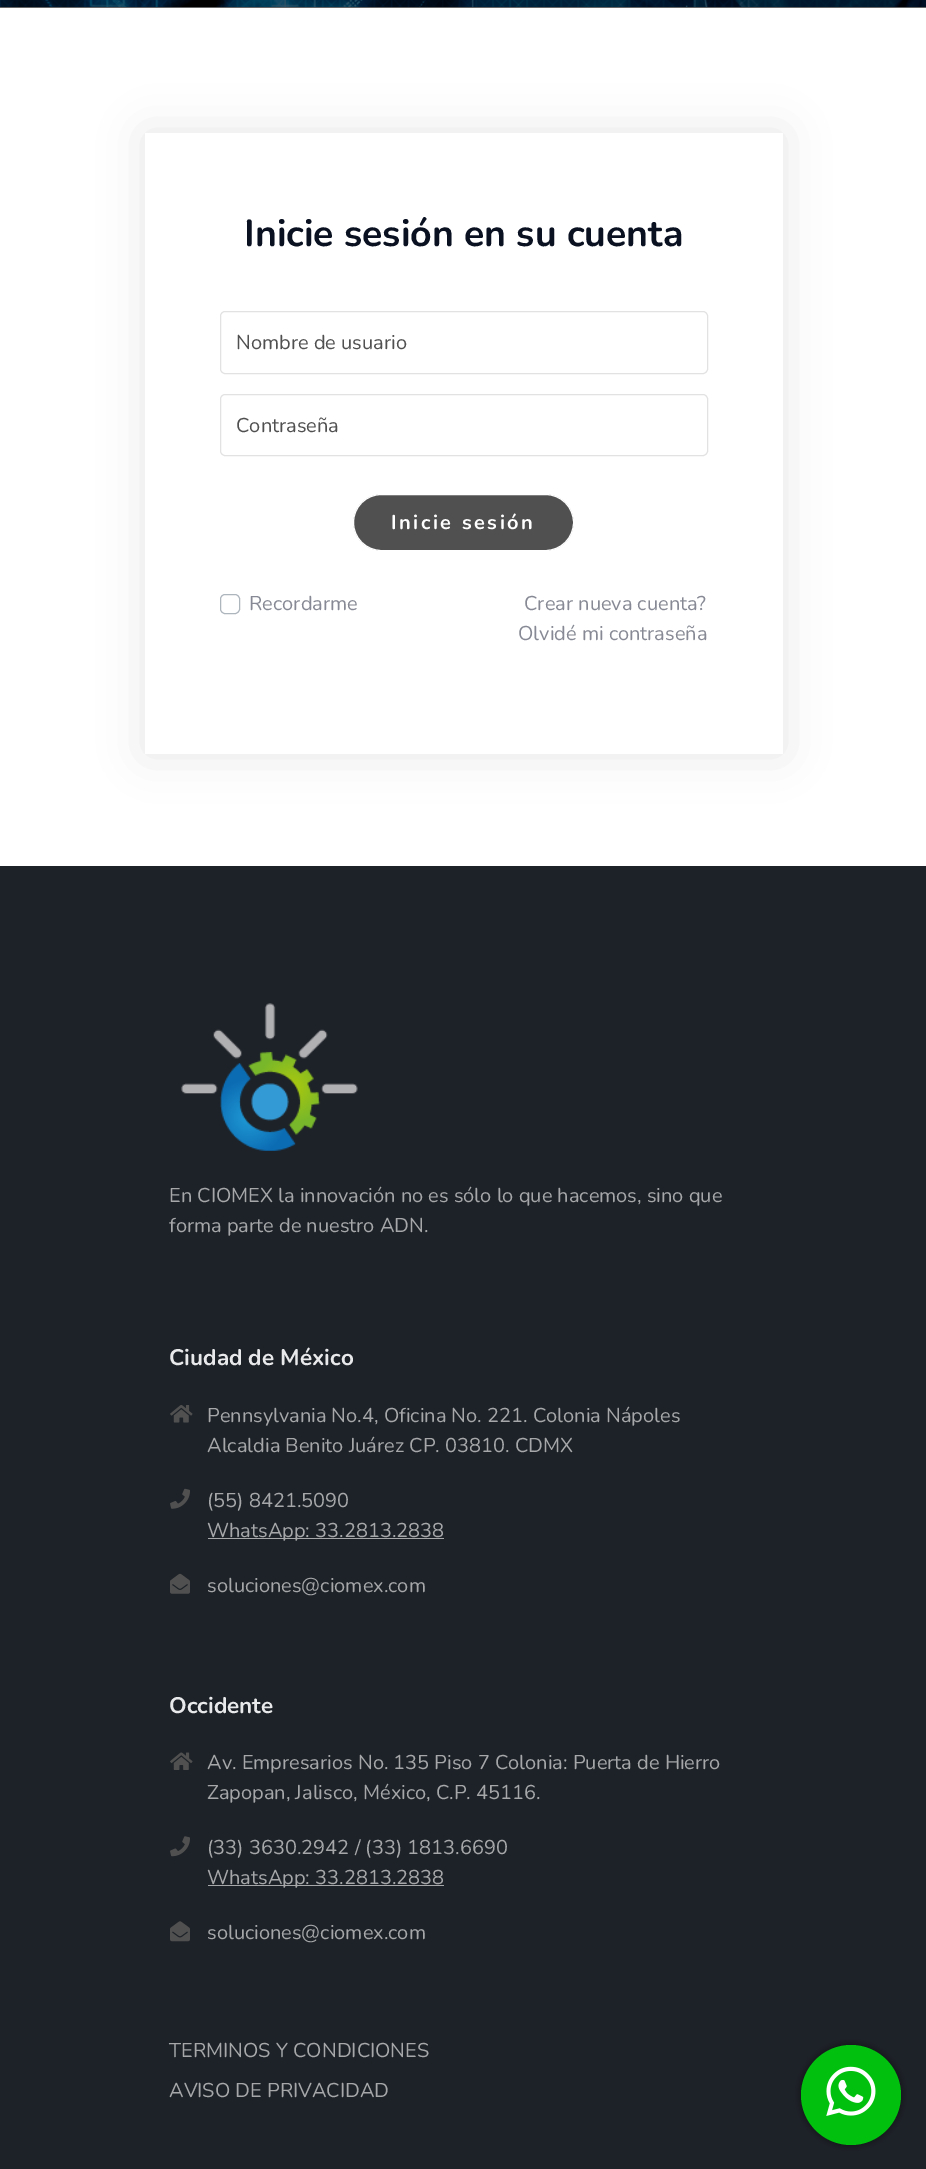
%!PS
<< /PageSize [926 2169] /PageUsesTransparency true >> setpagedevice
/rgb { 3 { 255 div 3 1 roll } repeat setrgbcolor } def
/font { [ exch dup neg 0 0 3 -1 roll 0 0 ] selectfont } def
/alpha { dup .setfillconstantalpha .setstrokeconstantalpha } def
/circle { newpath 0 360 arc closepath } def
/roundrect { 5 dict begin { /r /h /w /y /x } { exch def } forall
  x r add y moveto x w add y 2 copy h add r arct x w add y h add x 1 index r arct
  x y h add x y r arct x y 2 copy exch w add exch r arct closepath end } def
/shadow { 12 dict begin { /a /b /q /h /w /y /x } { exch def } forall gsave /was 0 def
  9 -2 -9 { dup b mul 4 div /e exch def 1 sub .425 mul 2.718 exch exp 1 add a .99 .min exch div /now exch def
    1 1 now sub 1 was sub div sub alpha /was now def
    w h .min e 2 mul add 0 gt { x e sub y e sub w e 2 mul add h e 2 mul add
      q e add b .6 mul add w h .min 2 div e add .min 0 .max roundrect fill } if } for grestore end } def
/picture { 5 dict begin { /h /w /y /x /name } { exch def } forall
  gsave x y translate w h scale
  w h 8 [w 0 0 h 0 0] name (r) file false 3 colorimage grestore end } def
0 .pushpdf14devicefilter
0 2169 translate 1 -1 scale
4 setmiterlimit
255 255 255 rgb
0 0 926 2169 rectfill
102 102 102 rgb
0 7 926 1 rectfill
(img/1.rgb) 0 0 926 7 picture
0 0 0 rgb
145 133 638 621 0 22 0.1 shadow
255 255 255 rgb
145 133 638 621 rectfill
226 226 226 rgb
220.5 311.5 487 62 4.5 roundrect stroke
220.5 394.5 487 61 4.5 roundrect stroke
80 80 80 rgb
353.5 494.5 220 56 28 roundrect gsave fill grestore
255 255 255 rgb
stroke
173 181 189 rgb
220.5 594.5 19 19 4.5 roundrect stroke
29 34 40 rgb
0 866 926 1303 rectfill
(img/2.rgb) 181 1003 177 148 picture
(img/3.rgb) 170 1405 23 18 picture
(img/4.rgb) 170 1488 20 21 picture
165 167 169 rgb
208 1538 236 1 rectfill
(img/5.rgb) 170 1573 20 21 picture
(img/6.rgb) 170 1752 23 18 picture
(img/7.rgb) 170 1836 20 21 picture
208 1885 236 1 rectfill
(img/8.rgb) 170 1921 20 21 picture
0 0 0 rgb
801 2045 100 100 50 3 0.5 shadow
1 193 14 rgb
851 2095 50 circle fill
(img/9.rgb) 826 2066 50 50 picture
/Nunito-Bold 37.5 font
10 17 33 rgb
244 246 moveto (Inicie sesión en su cuenta) show
/Nunito-Regular 20 font
80 80 80 rgb
236 349 moveto (Nombre de usuario) show
236 432 moveto (Contraseña) show
/Nunito-Bold 20 font
255 255 255 rgb
391 529 moveto 2.5 0 (Inicie sesión) ashow
/Nunito-Regular 20 font
135 138 149 rgb
[
  [(Recordarme) 249 610]
  [(Crear nueva cuenta?) 524 610]
  [(Olvidé mi contraseña) 518 640]
] { aload pop moveto show } forall
165 167 169 rgb
169 1202 moveto (En CIOMEX la innovación no es sólo lo que hacemos, sino que) show
169 1232 moveto (forma parte de nuestro ADN.) show
/Nunito-Bold 22.5 font
232 233 234 rgb
169 1365 moveto (Ciudad de México) show
/Nunito-Regular 20 font
165 167 169 rgb
[
  [(Pennsylvania No.4, Oficina No. 221. Colonia Nápoles) 207 1422]
  [(Alcaldia Benito Juárez CP. 03810. CDMX) 207 1452]
  [(\(55\) 8421.5090) 207 1507]
  [(WhatsApp: 33.2813.2838) 207 1537]
  [(soluciones@ciomex.com) 207 1592]
] { aload pop moveto show } forall
/Nunito-Bold 22.5 font
232 233 234 rgb
169 1713 moveto (Occidente) show
/Nunito-Regular 20 font
165 167 169 rgb
[
  [(Av. Empresarios No. 135 Piso 7 Colonia: Puerta de Hierro) 207 1769]
  [(Zapopan, Jalisco, México, C.P. 45116.) 207 1799]
  [(\(33\) 3630.2942 / \(33\) 1813.6690) 207 1854]
  [(WhatsApp: 33.2813.2838) 207 1884]
  [(soluciones@ciomex.com) 207 1939]
  [(TERMINOS Y CONDICIONES) 169 2057]
  [(AVISO DE PRIVACIDAD) 169 2097]
] { aload pop moveto show } forall
.poppdf14devicefilter showpage
